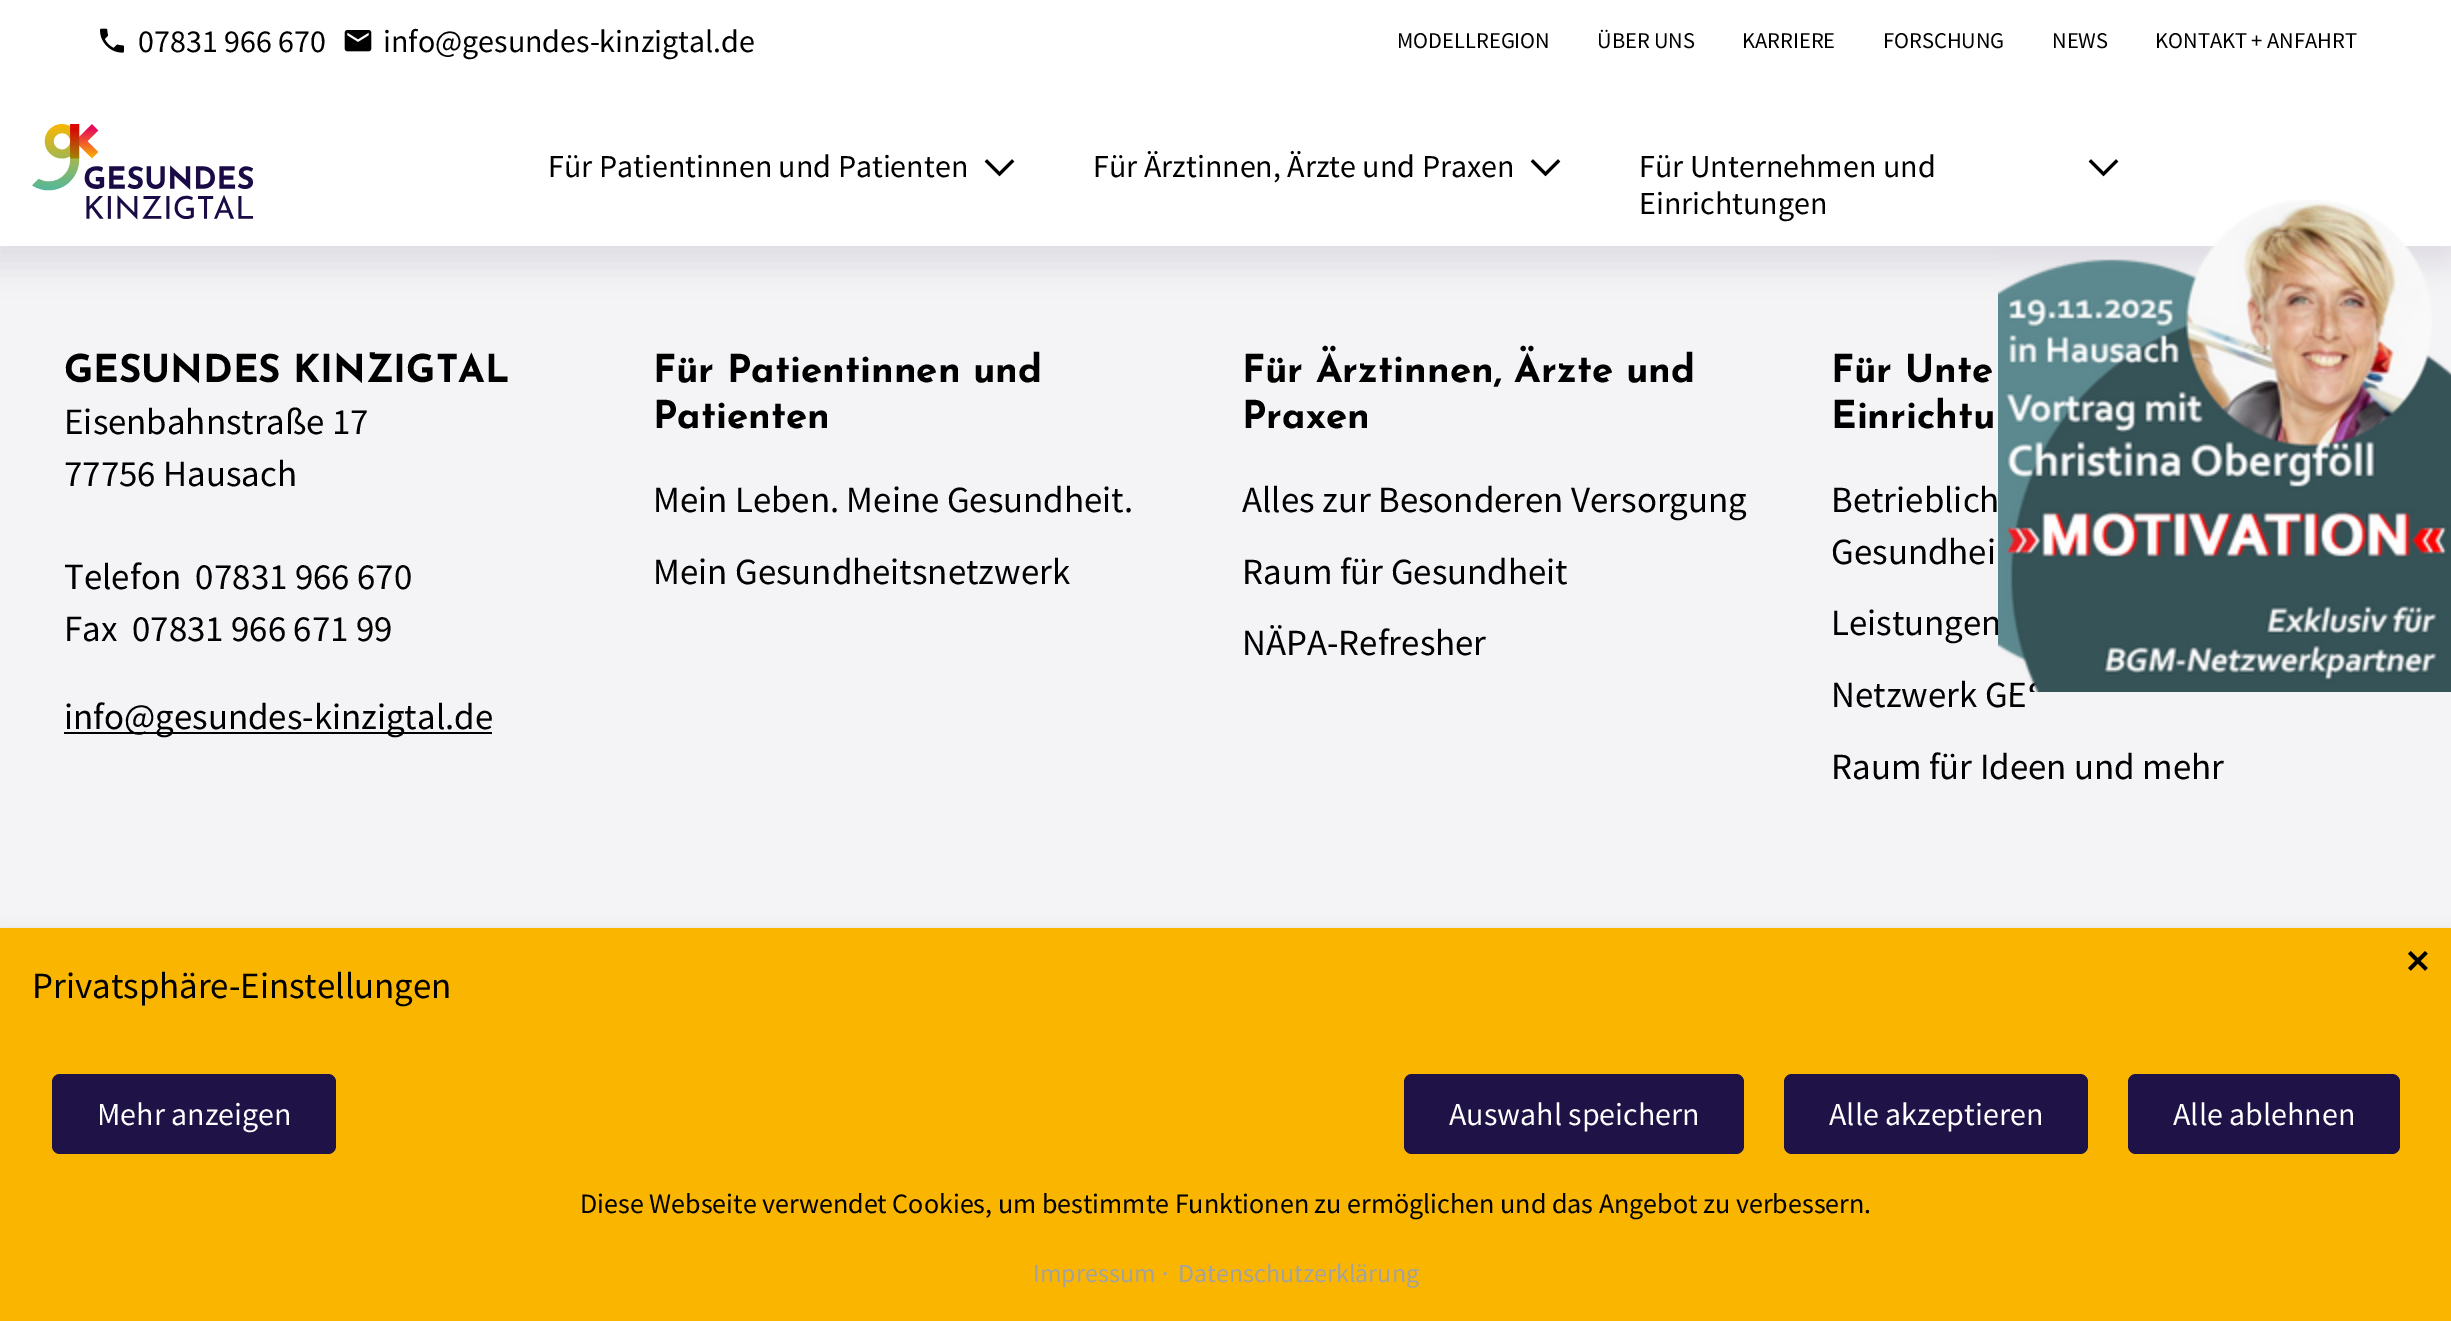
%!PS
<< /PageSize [2451 1321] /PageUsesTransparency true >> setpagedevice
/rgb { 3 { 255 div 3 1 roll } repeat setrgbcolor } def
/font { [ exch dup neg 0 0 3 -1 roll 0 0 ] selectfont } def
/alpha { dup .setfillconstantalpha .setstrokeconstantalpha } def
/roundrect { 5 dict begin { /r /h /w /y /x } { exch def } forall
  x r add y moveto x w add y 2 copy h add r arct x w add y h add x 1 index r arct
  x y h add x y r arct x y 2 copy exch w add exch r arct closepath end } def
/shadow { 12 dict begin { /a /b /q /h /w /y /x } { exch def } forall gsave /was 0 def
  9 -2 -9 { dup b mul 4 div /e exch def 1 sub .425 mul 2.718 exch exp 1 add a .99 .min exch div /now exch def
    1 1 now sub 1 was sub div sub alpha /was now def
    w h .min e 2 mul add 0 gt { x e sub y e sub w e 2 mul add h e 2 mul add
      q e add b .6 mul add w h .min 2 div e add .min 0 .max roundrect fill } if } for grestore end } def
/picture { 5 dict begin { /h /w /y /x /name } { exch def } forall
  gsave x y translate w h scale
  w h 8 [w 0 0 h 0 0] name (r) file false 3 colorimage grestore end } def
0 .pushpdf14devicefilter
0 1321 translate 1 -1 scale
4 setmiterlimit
244 243 245 rgb
0 0 2451 1321 rectfill
30 19 72 rgb
-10 80 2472 186 0 15 0.1 shadow
255 255 255 rgb
0 0 2451 246 rectfill
(img/1.rgb) 100 28 24 25 picture
(img/2.rgb) 344 30 28 22 picture
(img/3.rgb) 32 124 222 96 picture
0 0 0 rgb
3.1 setlinewidth
2 setlinecap
1012 161.5 moveto 999.5 174 lineto 987 161.5 moveto 999.5 174 lineto stroke
1558 161.5 moveto 1545.5 174 lineto 1533 161.5 moveto 1545.5 174 lineto stroke
2116 161.5 moveto 2103.5 174 lineto 2091 161.5 moveto 2103.5 174 lineto stroke
64 732 428 2 rectfill
99 99 99 rgb
0 932 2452 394 0 8 0.2 shadow
250 181 0 rgb
0 928 2451 393 rectfill
30 18 71 rgb
52 1074 284 80 8 roundrect fill
1404 1074 340 80 8 roundrect fill
1784 1074 304 80 8 roundrect fill
2128 1074 272 80 8 roundrect fill
/SourceSansPro-Regular 32 font
0 0 0 rgb
138 52 moveto (07831 966 670) show
383 52 moveto (info@gesundes-kinzigtal.de) show
/SourceSansPro-Regular 22.5 font
[
  [(MODELLREGION) 1397 48]
  [(ÜBER UNS) 1597 48]
  [(KARRIERE) 1742 48]
  [(FORSCHUNG) 1883 48]
  [(NEWS) 2052 48]
  [(KONTAKT + ANFAHRT) 2155 48]
] { aload pop moveto show } forall
/SourceSansPro-Regular 32 font
[
  [(Für Patientinnen und Patienten) 548 177]
  [(Für Ärztinnen, Ärzte und Praxen) 1093 177]
  [(Für Unternehmen und) 1639 177]
  [(Einrichtungen) 1639 214]
] { aload pop moveto show } forall
/JosefinSans-Thin 38.4 font
64 382 moveto (GESUNDES KINZIGTAL) show
/SourceSansPro-Regular 36.9 font
[
  [(Eisenbahnstraße 17) 64 434]
  [(77756 Hausach) 64 486]
  [(Telefon  07831 966 670) 64 589]
  [(Fax  07831 966 671 99) 64 641]
  [(info@gesundes-kinzigtal.de) 64 729]
] { aload pop moveto show } forall
/JosefinSans-Thin 38.4 font
653 382 moveto (Für Patientinnen und) show
653 428 moveto (Patienten) show
/SourceSansPro-Regular 36.9 font
653 512 moveto (Mein Leben. Meine Gesundheit.) show
653 584 moveto (Mein Gesundheitsnetzwerk) show
/JosefinSans-Thin 38.4 font
1242 382 moveto (Für Ärztinnen, Ärzte und) show
1242 428 moveto (Praxen) show
/SourceSansPro-Regular 36.9 font
[
  [(Alles zur Besonderen Versorgung) 1242 512]
  [(Raum für Gesundheit) 1242 584]
  [(NÄPA-Refresher) 1242 655]
] { aload pop moveto show } forall
/JosefinSans-Thin 38.4 font
1831 382 moveto (Für Unte) show
1831 428 moveto (Einrichtu) show
/SourceSansPro-Regular 36.9 font
[
  [(Betrieblich) 1831 512]
  [(Gesundhei) 1831 564]
  [(Leistungen) 1831 635]
  [(Netzwerk GE) 1831 707]
] { aload pop moveto show } forall
(img/4.rgb) 1998 200 453 492 picture
1831 779 moveto (Raum für Ideen und mehr) show
/DejaVuSans-Bold 32 font
2404 973 moveto (✕) show
/SourceSansPro-Regular 36.9 font
32 998 moveto (Privatsphäre-Einstellungen) show
/SourceSansPro-Regular 32 font
255 255 255 rgb
[
  [(Mehr anzeigen) 97 1125]
  [(Auswahl speichern) 1449 1125]
  [(Alle akzeptieren) 1829 1125]
  [(Alle ablehnen) 2173 1125]
] { aload pop moveto show } forall
/SourceSansPro-Regular 28 font
0 0 0 rgb
580 1213 moveto (Diese Webseite verwendet Cookies, um bestimmte Funktionen zu ermöglichen und das Angebot zu verbessern.) show
/SourceSansPro-Regular 26 font
162 162 162 rgb
[
  [(Impressum) 1033 1282]
  [(·) 1162 1282]
  [(Datenschutzerklärung) 1178 1282]
] { aload pop moveto show } forall
.poppdf14devicefilter showpage
